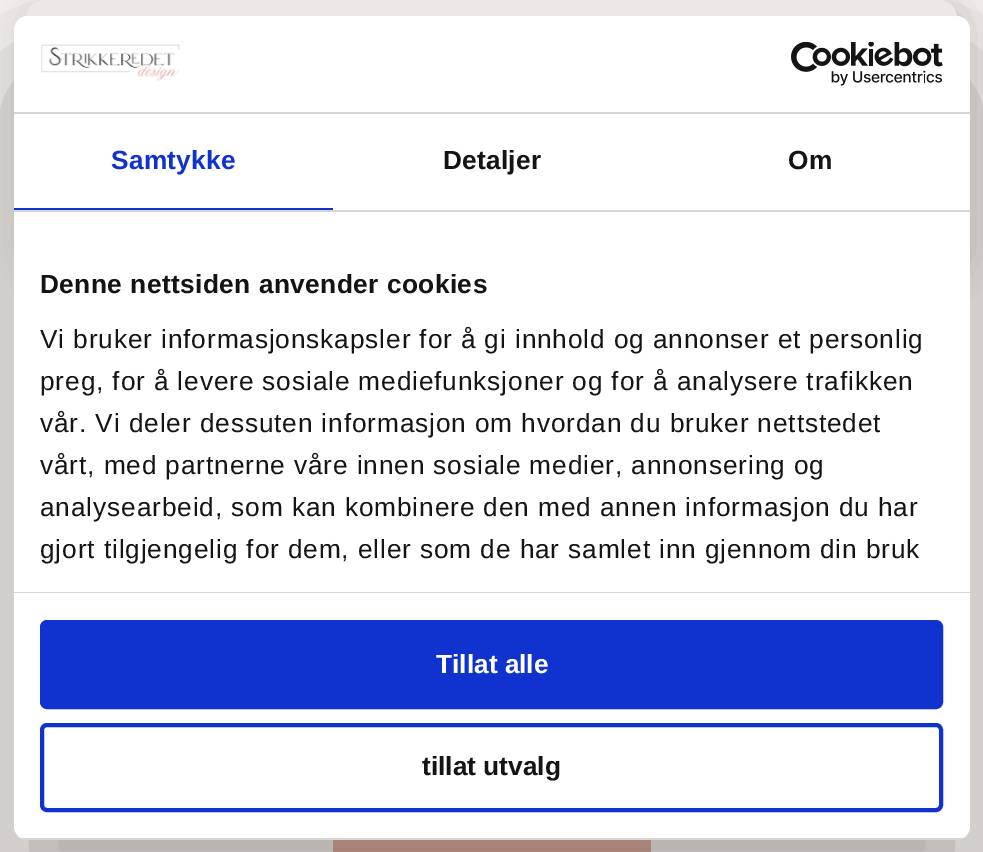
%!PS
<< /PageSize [983 852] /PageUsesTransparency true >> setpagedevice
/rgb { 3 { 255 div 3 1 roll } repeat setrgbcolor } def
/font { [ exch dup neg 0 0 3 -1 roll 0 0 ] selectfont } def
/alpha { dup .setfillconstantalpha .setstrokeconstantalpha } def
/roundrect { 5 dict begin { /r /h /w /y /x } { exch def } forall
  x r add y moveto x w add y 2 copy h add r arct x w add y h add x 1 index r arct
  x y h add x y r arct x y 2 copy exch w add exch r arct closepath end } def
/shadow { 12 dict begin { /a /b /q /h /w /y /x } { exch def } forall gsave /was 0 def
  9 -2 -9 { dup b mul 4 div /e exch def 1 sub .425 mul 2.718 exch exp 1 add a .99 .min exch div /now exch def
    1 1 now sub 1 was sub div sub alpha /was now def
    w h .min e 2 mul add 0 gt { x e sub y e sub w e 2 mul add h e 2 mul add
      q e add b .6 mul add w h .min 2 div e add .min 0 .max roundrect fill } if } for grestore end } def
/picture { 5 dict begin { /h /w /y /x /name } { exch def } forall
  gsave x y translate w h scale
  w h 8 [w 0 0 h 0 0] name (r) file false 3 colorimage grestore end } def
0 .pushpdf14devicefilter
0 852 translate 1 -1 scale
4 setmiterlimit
247 243 238 rgb
0 0 983 852 rectfill
0 0 0 rgb
33 7 931 263 18 17.5 0.2 shadow
247 243 238 rgb
26 0 931 263 18 roundrect fill
224 175 160 rgb
333 840 318 12 rectfill
0 0 0 rgb
14 72 956 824 14 59.5 0.3 shadow
255 255 255 rgb
14 16 956 824 14 roundrect fill
214 214 214 rgb
14 112 956 2 rectfill
(img/1.rgb) 41 44 139 37 picture
(img/2.rgb) 791 42 152 44 picture
[
  [14 210 956 2 214 214 214]
  [14 208 319 2 16 50 207]
  [14 592 956 1 214 214 214]
] { aload pop rgb rectfill } forall
gsave
14 16 956 824 14 roundrect clip newpath
14 838 956 2 rectfill
grestore
16 50 207 rgb
42 622 899 85 5 roundrect gsave fill grestore
4 setlinewidth
stroke
42 725 899 85 5 roundrect stroke
/LiberationSans-Bold 26.25 font
111 169 moveto 0.25 0 (Samtykke) ashow
20 20 20 rgb
443 169 moveto 0.25 0 (Detaljer) ashow
788 169 moveto 0.25 0 (Om) ashow
40 293 moveto 0.45 0 (Denne nettsiden anvender cookies) ashow
/LiberationSans-Regular 26.25 font
40 348 moveto 0.88 0 (Vi bruker informasjonskapsler for å gi innhold og annonser et personlig) ashow
40 390 moveto 0.88 0 (preg, for å levere sosiale mediefunksjoner og for å analysere trafikken) ashow
40 432 moveto 0.88 0 (vår. Vi deler dessuten informasjon om hvordan du bruker nettstedet) ashow
40 474 moveto 0.88 0 (vårt, med partnerne våre innen sosiale medier, annonsering og) ashow
40 516 moveto 0.88 0 (analysearbeid, som kan kombinere den med annen informasjon du har) ashow
40 558 moveto 0.88 0 (gjort tilgjengelig for dem, eller som de har samlet inn gjennom din bruk) ashow
/LiberationSans-Bold 26.25 font
255 255 255 rgb
436 673 moveto (Tillat alle) show
20 20 20 rgb
422 775 moveto (tillat utvalg) show
.poppdf14devicefilter showpage
